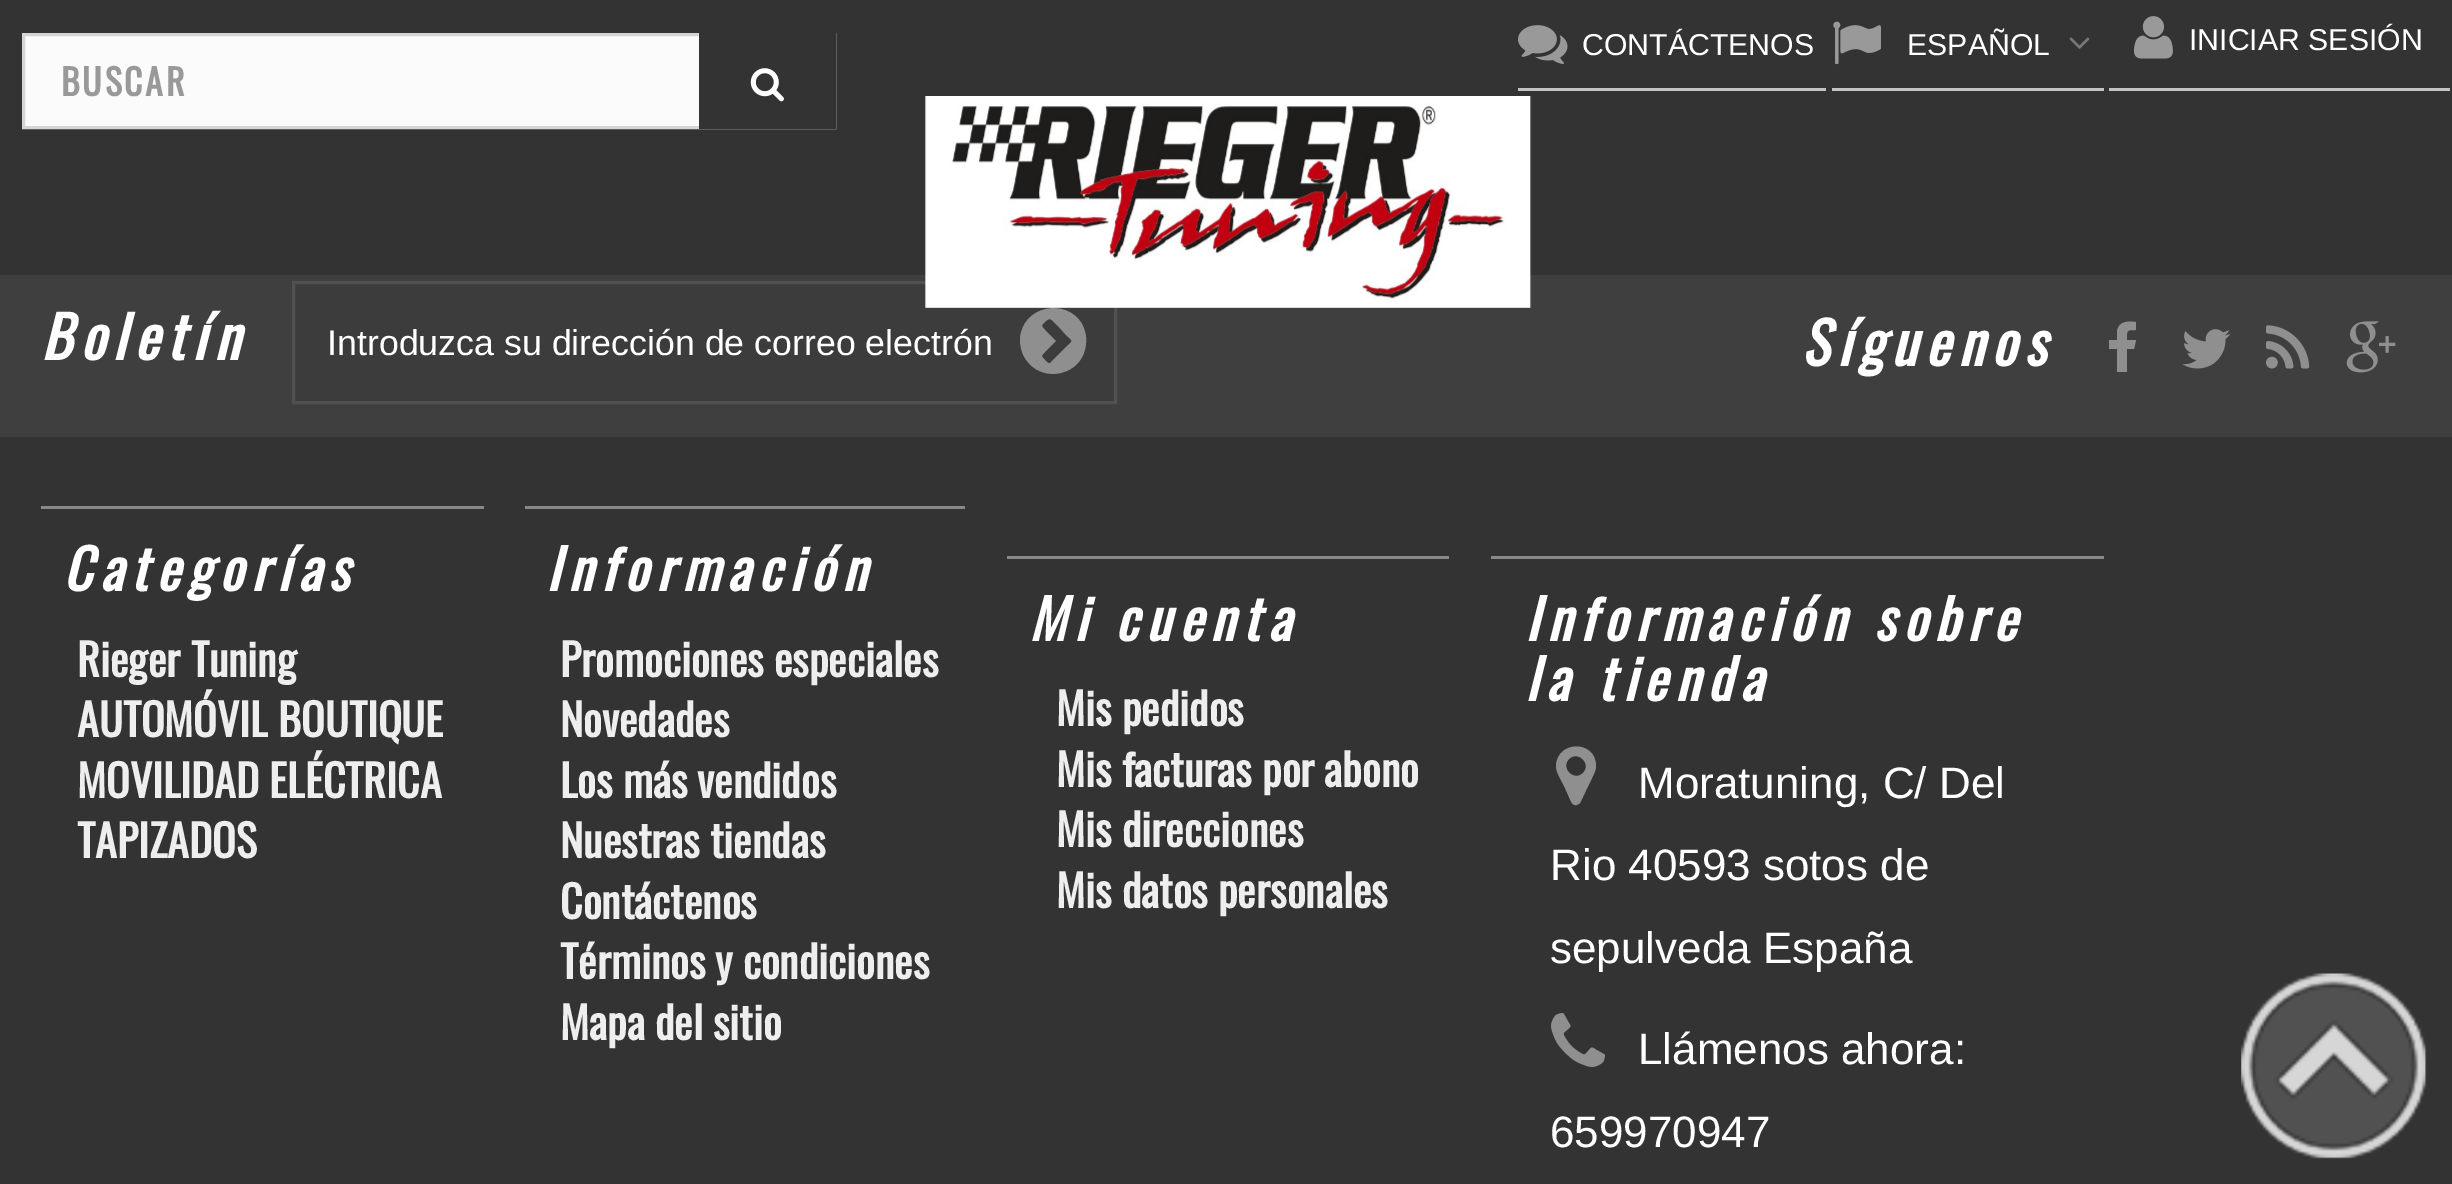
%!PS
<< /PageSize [2452 1184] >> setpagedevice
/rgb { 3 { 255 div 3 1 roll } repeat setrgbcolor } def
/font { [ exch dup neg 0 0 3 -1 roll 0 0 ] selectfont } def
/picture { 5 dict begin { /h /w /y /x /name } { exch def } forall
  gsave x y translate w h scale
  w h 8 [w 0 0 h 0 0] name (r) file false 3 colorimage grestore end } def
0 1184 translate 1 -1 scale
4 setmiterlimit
51 51 51 rgb
0 0 2452 1184 rectfill
196 196 196 rgb
1518 88 308 3 rectfill
(img/1.rgb) 1518 25 50 39 picture
1832 88 272 3 rectfill
(img/2.rgb) 1833 21 48 44 picture
(img/3.rgb) 2069 37 21 12 picture
2109 88 341 3 rectfill
(img/4.rgb) 2134 16 39 43 picture
63 63 63 rgb
0 275 2452 162 rectfill
60 60 60 rgb
293.5 282.5 moveto 1115.5 282.5 lineto 1115.5 402.5 lineto 293.5 402.5 lineto closepath gsave fill grestore
81 81 81 rgb
3 setlinewidth
stroke
(img/5.rgb) 925 96 607 212 picture
251 251 251 rgb
25 36 674 90 rectfill
214 212 212 rgb
23.5 34.5 811 93 rectstroke
51 51 51 rgb
699 33 137 96 rectfill
(img/6.rgb) 750 68 34 34 picture
144 143 143 rgb
1051 362 moveto 1067 346 lineto 1073 341 1073 341 1067 336 curveto 1058 326 lineto 1053 322 1051 316 1046 321 curveto 1042 325 1040 325 1045 330 curveto 1056 341 lineto 1045 352 lineto 1041 356 1041 356 1045 360 curveto 1047 362 1049 365 1051 362 curveto closepath 1082 324 moveto 1085 330 1087 337 1086 343 curveto 1084 376 1041 385 1025 358 curveto 1021 352 1020 345 1020 339 curveto 1022 306 1066 297 1082 324 curveto closepath fill
2136 322 moveto 2136 330 lineto 2126 330 2127 330 2127 340 curveto 2136 340 lineto 2134 349 lineto 2127 349 lineto 2127 372 lineto 2117 372 lineto 2117 349 lineto 2109 349 lineto 2109 340 lineto 2117 340 lineto 2117 331 lineto 2119 321 2128 321 2136 322 curveto closepath fill
(img/7.rgb) 2182 329 49 40 picture
(img/8.rgb) 2266 325 44 44 picture
(img/9.rgb) 2346 321 50 52 picture
[
  [41 506 443 3 136 136 136]
  [525 506 440 3 136 136 136]
  [1007 556 442 3 136 136 136]
  [1491 556 613 3 136 136 136]
] { aload pop rgb rectfill } forall
144 143 143 rgb
1583 773 moveto 1592 764 1578 750 1569 759 curveto 1560 768 1574 782 1583 773 curveto closepath 1596 766 moveto 1596 770 1594 774 1592 778 curveto 1580 803 lineto 1577 805 lineto 1572 806 1571 801 1569 797 curveto 1565 788 lineto 1562 781 1556 773 1556 766 curveto 1557 740 1596 740 1596 766 curveto closepath fill
(img/10.rgb) 1551 1013 54 54 picture
(img/11.rgb) 2241 973 186 186 picture
/LiberationSans-Regular 30.25 font
255 255 255 rgb
[
  [(CONTÁCTENOS) 1582 55]
  [(ESPAÑOL) 1907 55]
  [(INICIAR SESIÓN) 2189 50]
] { aload pop moveto show } forall
/Oswald-Bold 35.75 font
153 153 153 rgb
61 96 moveto 2.75 0 (BUSCAR) ashow
/Oswald-BoldItalic 57.75 font
255 255 255 rgb
41 360 moveto 8.25 0 (Boletín) ashow
/LiberationSans-Regular 35.75 font
327 355 moveto (Introduzca su dirección de correo electrón) show
/Oswald-BoldItalic 57.75 font
1801 366 moveto 8.25 0 (Síguenos) ashow
/Oswald-BoldItalic 55 font
63 591 moveto 8.25 0 (Categorías) ashow
/Oswald-Bold 44 font
238 238 238 rgb
[
  [(Rieger Tuning) 77 677]
  [(AUTOMÓVIL BOUTIQUE) 77 737]
  [(MOVILIDAD ELÉCTRICA) 77 798]
  [(TAPIZADOS) 77 858]
] { aload pop moveto show } forall
/Oswald-BoldItalic 55 font
255 255 255 rgb
546 591 moveto 8.25 0 (Información) ashow
/Oswald-Bold 44 font
238 238 238 rgb
[
  [(Promociones especiales) 560 677]
  [(Novedades) 560 737]
  [(Los más vendidos) 560 798]
  [(Nuestras tiendas) 560 858]
  [(Contáctenos) 560 919]
  [(Términos y condiciones) 560 979]
  [(Mapa del sitio) 560 1040]
] { aload pop moveto show } forall
/Oswald-BoldItalic 55 font
255 255 255 rgb
1029 641 moveto 8.25 0 (Mi cuenta) ashow
/Oswald-Bold 44 font
238 238 238 rgb
[
  [(Mis pedidos) 1056 726]
  [(Mis facturas por abono) 1056 787]
  [(Mis direcciones) 1056 847]
  [(Mis datos personales) 1056 908]
] { aload pop moveto show } forall
/Oswald-BoldItalic 55 font
255 255 255 rgb
1525 641 moveto 8.25 0 (Información sobre) ashow
1525 701 moveto 8.25 0 (la tienda) ashow
/LiberationSans-Regular 44 font
[
  [(Moratuning, C/ Del) 1638 798]
  [(Rio 40593 sotos de) 1550 880]
  [(sepulveda España) 1550 963]
  [(Llámenos ahora:) 1638 1064]
  [(659970947) 1550 1147]
] { aload pop moveto show } forall
showpage
